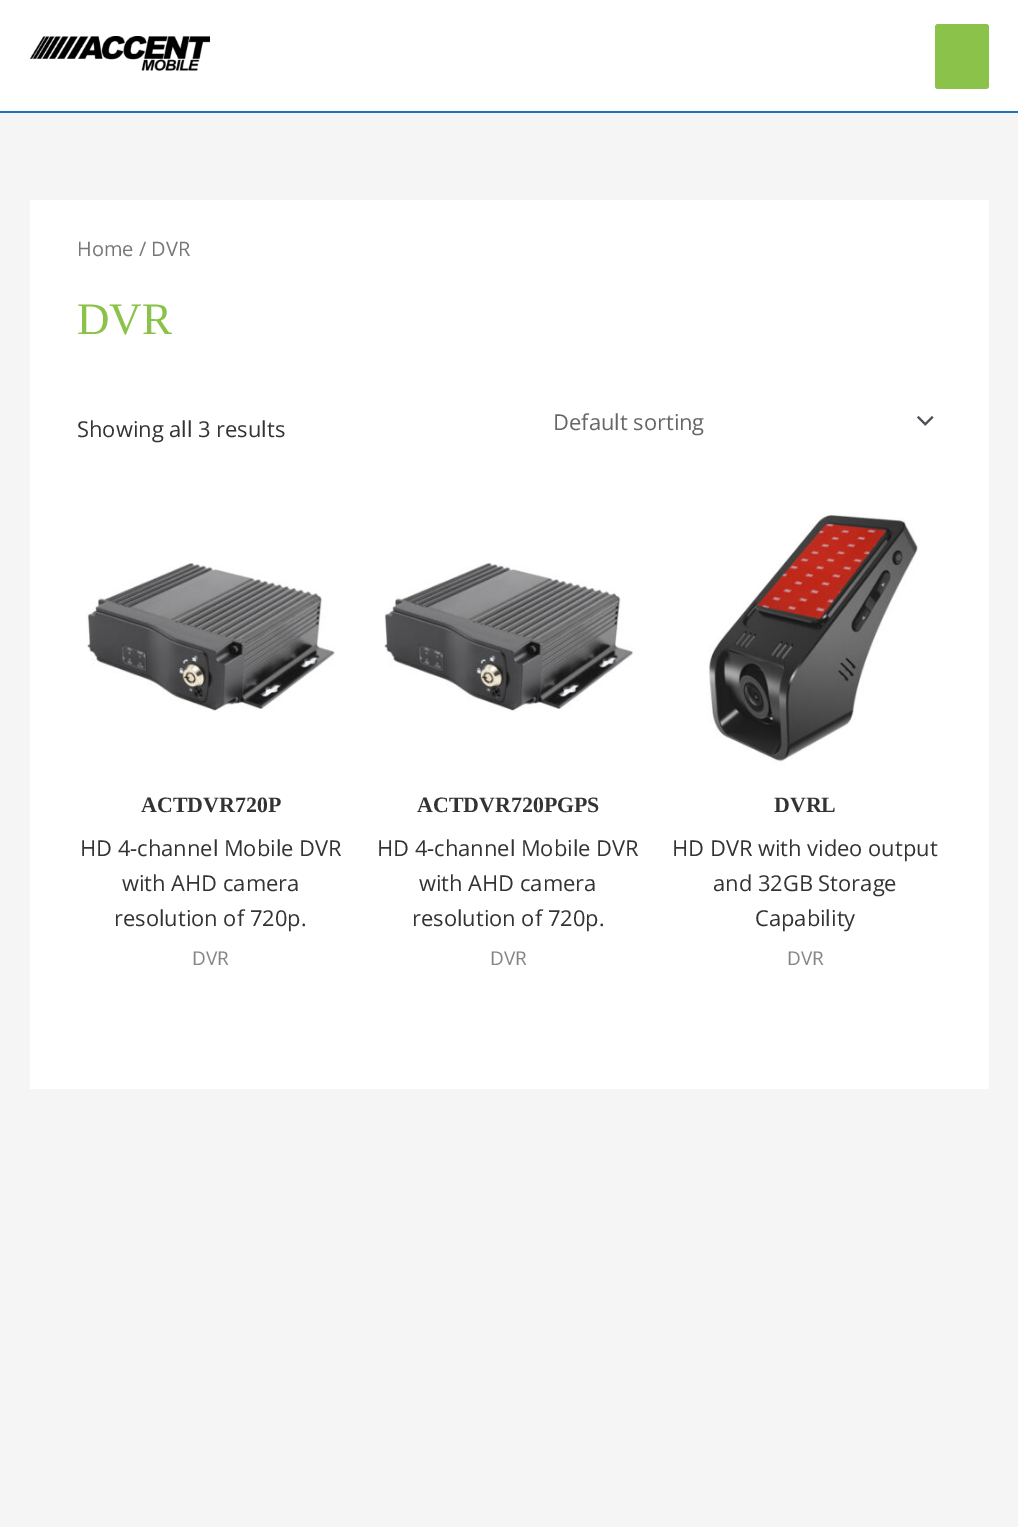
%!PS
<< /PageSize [1018 1527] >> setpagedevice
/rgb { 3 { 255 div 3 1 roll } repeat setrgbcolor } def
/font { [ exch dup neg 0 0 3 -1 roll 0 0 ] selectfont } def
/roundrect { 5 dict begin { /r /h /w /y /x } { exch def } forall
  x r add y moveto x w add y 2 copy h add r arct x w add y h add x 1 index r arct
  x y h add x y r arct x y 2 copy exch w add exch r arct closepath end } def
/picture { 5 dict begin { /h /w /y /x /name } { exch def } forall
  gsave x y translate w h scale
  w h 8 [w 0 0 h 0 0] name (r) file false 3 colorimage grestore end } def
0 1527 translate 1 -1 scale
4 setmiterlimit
245 245 245 rgb
0 0 1018 1527 rectfill
255 255 255 rgb
0 0 1018 111 rectfill
30 115 190 rgb
0 111 1018 2 rectfill
(img/1.rgb) 30 36 180 35 picture
139 195 74 rgb
935 24 54 65 3 roundrect fill
255 255 255 rgb
30 200 959 889 rectfill
(img/2.rgb) 917 416 17 10 picture
(img/3.rgb) 86 562 249 150 picture
(img/4.rgb) 384 562 251 150 picture
(img/5.rgb) 708 513 212 252 picture
/OpenSans-Regular 20 font
119 119 119 rgb
77 256 moveto (Home / DVR) show
/LiberationSerif-Regular 45 font
139 195 74 rgb
77 334 moveto (DVR) show
/OpenSans-Regular 21.9 font
51 51 51 rgb
77 437 moveto (Showing all 3 results) show
102 102 102 rgb
553 430 moveto (Default sorting) show
/LiberationSerif-Bold 21.9 font
51 51 51 rgb
141 812 moveto (ACTDVR720P) show
/OpenSans-Regular 21.9 font
[
  [(HD 4-channel Mobile DVR) 80 856]
  [(with AHD camera) 122 891]
  [(resolution of 720p.) 114 926]
] { aload pop moveto show } forall
/OpenSans-Regular 19 font
133 133 133 rgb
192 965 moveto (DVR) show
/LiberationSerif-Bold 21.9 font
51 51 51 rgb
417 812 moveto (ACTDVR720PGPS) show
/OpenSans-Regular 21.9 font
[
  [(HD 4-channel Mobile DVR) 377 856]
  [(with AHD camera) 419 891]
  [(resolution of 720p.) 412 926]
] { aload pop moveto show } forall
/OpenSans-Regular 19 font
133 133 133 rgb
490 965 moveto (DVR) show
/LiberationSerif-Bold 21.9 font
51 51 51 rgb
774 812 moveto (DVRL) show
/OpenSans-Regular 21.9 font
[
  [(HD DVR with video output) 672 856]
  [(and 32GB Storage) 713 891]
  [(Capability) 755 926]
] { aload pop moveto show } forall
/OpenSans-Regular 19 font
133 133 133 rgb
787 965 moveto (DVR) show
showpage
